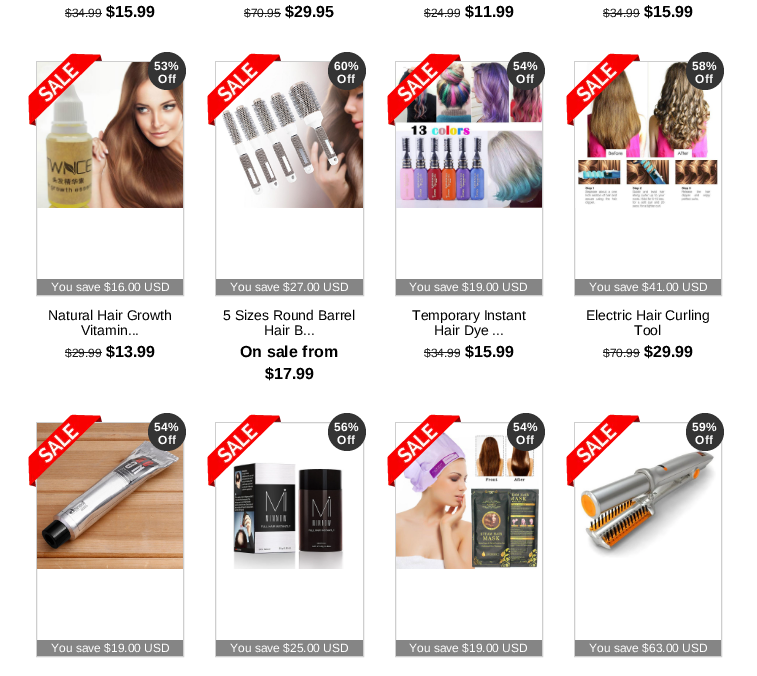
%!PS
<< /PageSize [757 676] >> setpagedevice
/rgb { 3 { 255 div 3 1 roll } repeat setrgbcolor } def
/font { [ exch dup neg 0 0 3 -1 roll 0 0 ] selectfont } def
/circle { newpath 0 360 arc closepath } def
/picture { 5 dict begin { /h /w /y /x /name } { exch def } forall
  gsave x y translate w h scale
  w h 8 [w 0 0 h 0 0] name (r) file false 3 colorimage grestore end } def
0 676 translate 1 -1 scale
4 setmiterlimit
255 255 255 rgb
0 0 757 676 rectfill
[
  [65 13 37 1 26 26 26]
  [244 13 37 1 26 26 26]
  [424 13 36 1 26 26 26]
  [603 13 37 1 26 26 26]
] { aload pop rgb rectfill } forall
206 206 206 rgb
36.5 61.5 147 234 rectstroke
(img/2.rgb) 37 62 146 146 picture
(img/1.rgb) 28 53 74 73 picture
52 52 52 rgb
167 71 19 circle fill
133 133 133 rgb
37 279 146 16 rectfill
26 26 26 rgb
65 352 37 1 rectfill
206 206 206 rgb
215.5 61.5 148 234 rectstroke
(img/4.rgb) 222 62 141 146 picture
(img/3.rgb) 207 53 74 73 picture
52 52 52 rgb
347 71 19 circle fill
133 133 133 rgb
216 279 147 16 rectfill
206 206 206 rgb
395.5 61.5 147 234 rectstroke
(img/6.rgb) 396 62 146 146 picture
(img/5.rgb) 387 53 74 73 picture
52 52 52 rgb
526 71 19 circle fill
133 133 133 rgb
396 279 146 16 rectfill
26 26 26 rgb
424 352 36 1 rectfill
206 206 206 rgb
574.5 61.5 147 234 rectstroke
(img/8.rgb) 575 62 143 146 picture
(img/7.rgb) 566 53 74 73 picture
52 52 52 rgb
705 71 19 circle fill
133 133 133 rgb
575 279 146 16 rectfill
26 26 26 rgb
603 352 37 1 rectfill
206 206 206 rgb
36.5 422.5 147 234 rectstroke
(img/10.rgb) 37 423 146 146 picture
(img/9.rgb) 28 414 74 73 picture
52 52 52 rgb
167 432 19 circle fill
133 133 133 rgb
37 640 146 16 rectfill
206 206 206 rgb
215.5 422.5 148 234 rectstroke
(img/12.rgb) 233 462 111 107 picture
(img/11.rgb) 207 414 74 73 picture
52 52 52 rgb
347 432 19 circle fill
133 133 133 rgb
216 640 147 16 rectfill
206 206 206 rgb
395.5 422.5 147 234 rectstroke
(img/14.rgb) 396 426 143 143 picture
(img/13.rgb) 387 414 74 73 picture
52 52 52 rgb
526 432 19 circle fill
133 133 133 rgb
396 640 146 16 rectfill
206 206 206 rgb
574.5 422.5 147 234 rectstroke
(img/16.rgb) 580 442 136 116 picture
(img/15.rgb) 566 414 74 73 picture
52 52 52 rgb
705 432 19 circle fill
133 133 133 rgb
575 640 146 16 rectfill
/LiberationSans-Regular 12 font
26 26 26 rgb
65 17 moveto ($34.99) show
/LiberationSans-Bold 16 font
0 0 0 rgb
106 17 moveto ($15.99) show
/LiberationSans-Regular 12 font
26 26 26 rgb
244 17 moveto ($70.95) show
/LiberationSans-Bold 16 font
0 0 0 rgb
285 17 moveto ($29.95) show
/LiberationSans-Regular 12 font
26 26 26 rgb
424 17 moveto ($24.99) show
/LiberationSans-Bold 16 font
0 0 0 rgb
465 17 moveto ($11.99) show
/LiberationSans-Regular 12 font
26 26 26 rgb
603 17 moveto ($34.99) show
/LiberationSans-Bold 16 font
0 0 0 rgb
644 17 moveto ($15.99) show
/LiberationSans-Bold 12 font
255 255 255 rgb
154 70 moveto 0.5 0 (53%) ashow
158 83 moveto 0.5 0 (Off) ashow
/LiberationSans-Regular 12 font
51 291 moveto (You save $16.00 USD) show
/LiberationSans-Regular 14 font
0 0 0 rgb
48 320 moveto (Natural Hair Growth) show
81 335 moveto (Vitamin...) show
/LiberationSans-Regular 12 font
26 26 26 rgb
65 357 moveto ($29.99) show
/LiberationSans-Bold 16 font
0 0 0 rgb
106 357 moveto ($13.99) show
/LiberationSans-Bold 12 font
255 255 255 rgb
334 70 moveto 0.5 0 (60%) ashow
337 83 moveto 0.5 0 (Off) ashow
/LiberationSans-Regular 12 font
230 291 moveto (You save $27.00 USD) show
/LiberationSans-Regular 14 font
0 0 0 rgb
223 320 moveto (5 Sizes Round Barrel) show
264 335 moveto (Hair B...) show
/LiberationSans-Bold 16 font
240 357 moveto (On sale from) show
265 379 moveto ($17.99) show
/LiberationSans-Bold 12 font
255 255 255 rgb
513 70 moveto 0.5 0 (54%) ashow
516 83 moveto 0.5 0 (Off) ashow
/LiberationSans-Regular 12 font
409 291 moveto (You save $19.00 USD) show
/LiberationSans-Regular 14 font
0 0 0 rgb
412 320 moveto (Temporary Instant) show
434 335 moveto (Hair Dye ...) show
/LiberationSans-Regular 12 font
26 26 26 rgb
424 357 moveto ($34.99) show
/LiberationSans-Bold 16 font
0 0 0 rgb
465 357 moveto ($15.99) show
/LiberationSans-Bold 12 font
255 255 255 rgb
692 70 moveto 0.5 0 (58%) ashow
695 83 moveto 0.5 0 (Off) ashow
/LiberationSans-Regular 12 font
589 291 moveto (You save $41.00 USD) show
/LiberationSans-Regular 14 font
0 0 0 rgb
586 320 moveto (Electric Hair Curling) show
634 335 moveto (Tool) show
/LiberationSans-Regular 12 font
26 26 26 rgb
603 357 moveto ($70.99) show
/LiberationSans-Bold 16 font
0 0 0 rgb
644 357 moveto ($29.99) show
/LiberationSans-Bold 12 font
255 255 255 rgb
154 431 moveto 0.5 0 (54%) ashow
158 444 moveto 0.5 0 (Off) ashow
/LiberationSans-Regular 12 font
51 652 moveto (You save $19.00 USD) show
/LiberationSans-Bold 12 font
334 431 moveto 0.5 0 (56%) ashow
337 444 moveto 0.5 0 (Off) ashow
/LiberationSans-Regular 12 font
230 652 moveto (You save $25.00 USD) show
/LiberationSans-Bold 12 font
513 431 moveto 0.5 0 (54%) ashow
516 444 moveto 0.5 0 (Off) ashow
/LiberationSans-Regular 12 font
409 652 moveto (You save $19.00 USD) show
/LiberationSans-Bold 12 font
692 431 moveto 0.5 0 (59%) ashow
695 444 moveto 0.5 0 (Off) ashow
/LiberationSans-Regular 12 font
589 652 moveto (You save $63.00 USD) show
showpage
